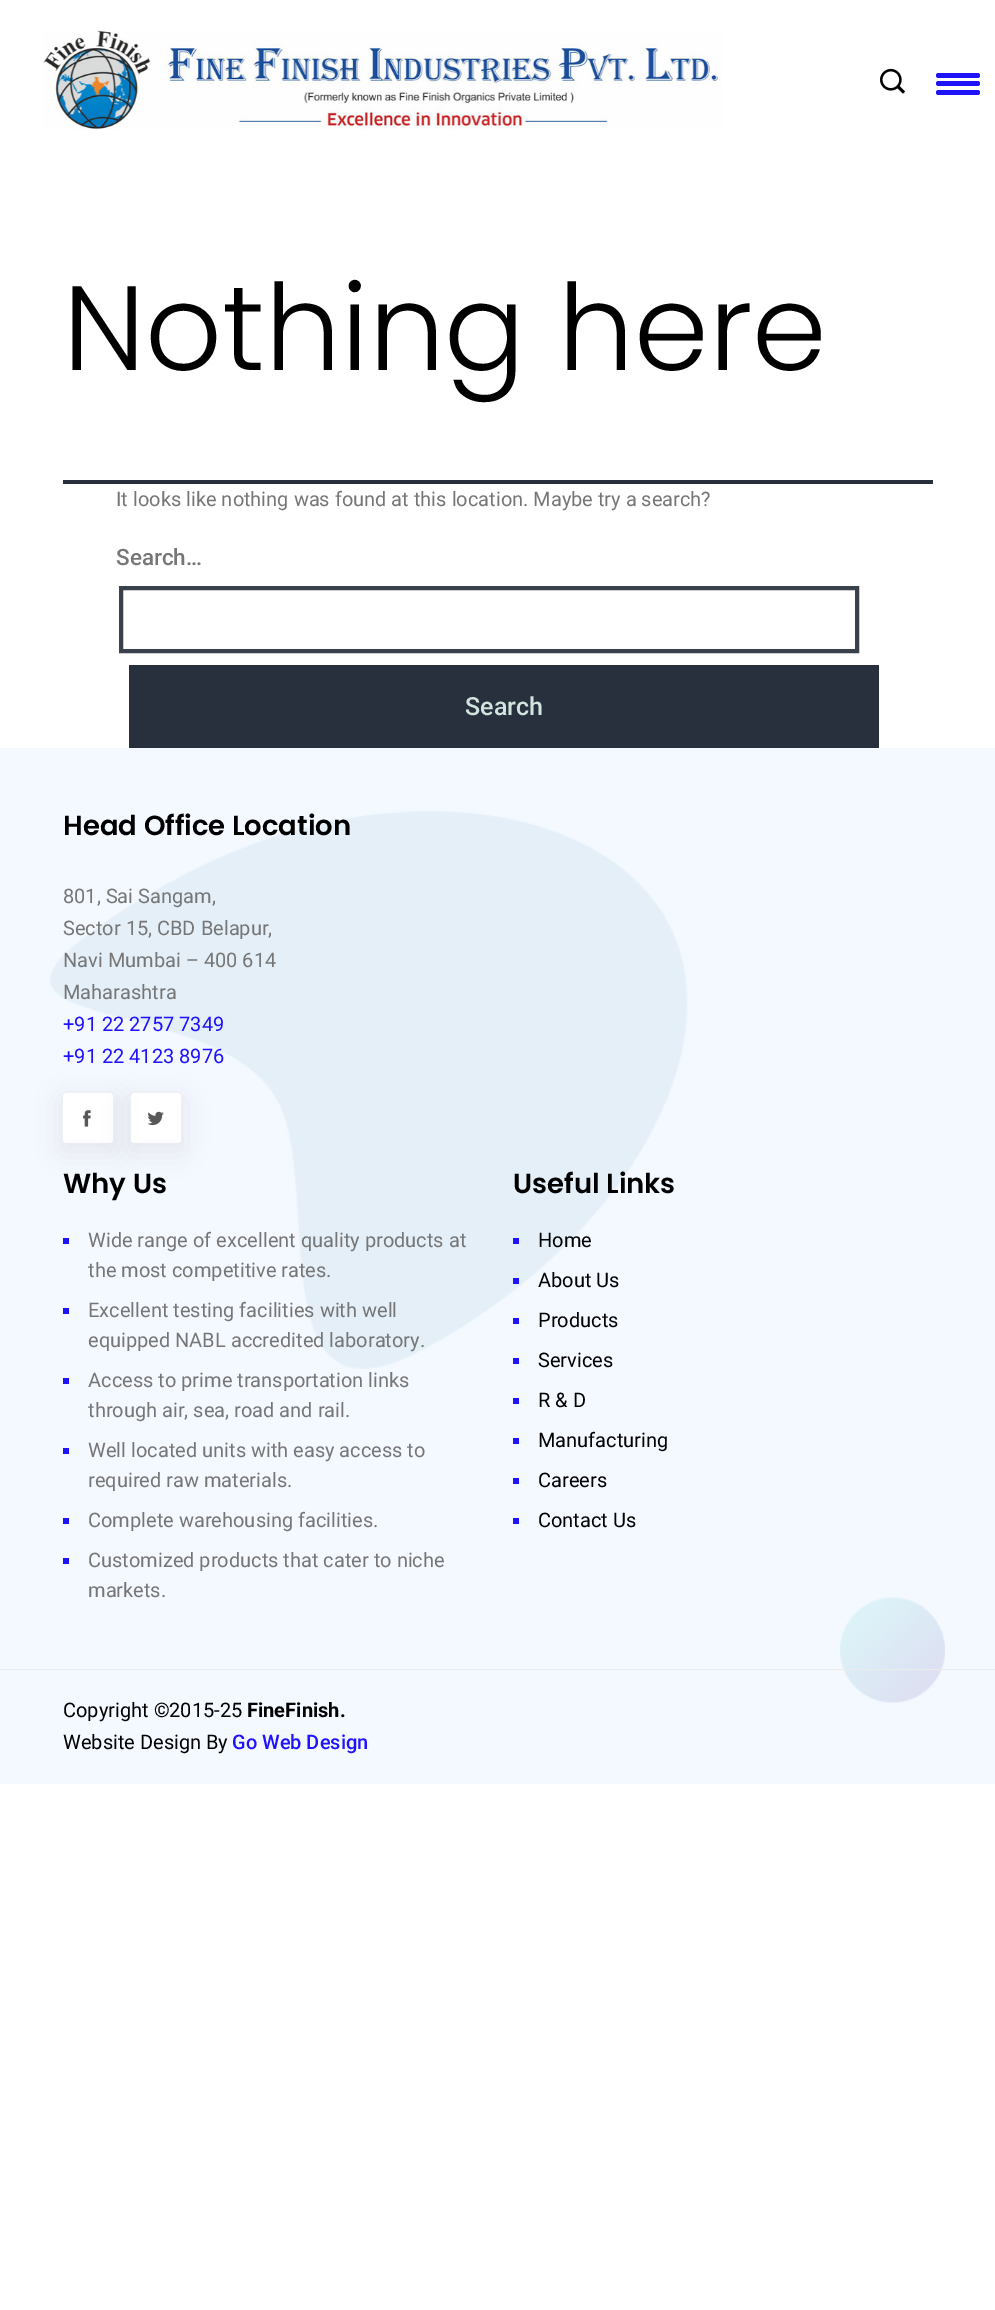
%!PS
<< /PageSize [995 2310] /PageUsesTransparency true >> setpagedevice
/rgb { 3 { 255 div 3 1 roll } repeat setrgbcolor } def
/font { [ exch dup neg 0 0 3 -1 roll 0 0 ] selectfont } def
/alpha { dup .setfillconstantalpha .setstrokeconstantalpha } def
/roundrect { 5 dict begin { /r /h /w /y /x } { exch def } forall
  x r add y moveto x w add y 2 copy h add r arct x w add y h add x 1 index r arct
  x y h add x y r arct x y 2 copy exch w add exch r arct closepath end } def
/shadow { 12 dict begin { /a /b /q /h /w /y /x } { exch def } forall gsave /was 0 def
  9 -2 -9 { dup b mul 4 div /e exch def 1 sub .425 mul 2.718 exch exp 1 add a .99 .min exch div /now exch def
    1 1 now sub 1 was sub div sub alpha /was now def
    w h .min e 2 mul add 0 gt { x e sub y e sub w e 2 mul add h e 2 mul add
      q e add b .6 mul add w h .min 2 div e add .min 0 .max roundrect fill } if } for grestore end } def
/picture { 5 dict begin { /h /w /y /x /name } { exch def } forall
  gsave x y translate w h scale
  w h 8 [w 0 0 h 0 0] name (r) file false 3 colorimage grestore end } def
0 .pushpdf14devicefilter
0 2310 translate 1 -1 scale
4 setmiterlimit
255 255 255 rgb
0 0 995 2310 rectfill
(img/1.rgb) 43 30 679 100 picture
(img/2.rgb) 880 68 25 26 picture
31 18 253 rgb
936 73 44 5 2.5 roundrect fill
936 81 44 5 2.5 roundrect fill
936 90 44 5 2.5 roundrect fill
40 48 61 rgb
63 480 870 4 rectfill
57 65 77 rgb
4 setlinewidth
121 588 736 63 rectstroke
40 48 61 rgb
129 665 750 83 rectfill
244 248 255 rgb
0 748 995 1036 rectfill
(img/3.rgb) 50 811 638 558 picture
(img/4.rgb) 840 1597 105 106 picture
32 32 32 rgb
63 1100 50 50 0 13 0.08 shadow
255 255 255 rgb
63 1093 50 50 4 roundrect fill
(img/5.rgb) 83 1110 8 17 picture
32 32 32 rgb
131 1100 50 50 0 13 0.08 shadow
255 255 255 rgb
131 1093 50 50 4 roundrect fill
(img/6.rgb) 147 1111 17 15 picture
[
  [63 1238 6 6 31 18 253]
  [63 1308 6 6 31 18 253]
  [63 1378 6 6 31 18 253]
  [63 1448 6 6 31 18 253]
  [63 1518 6 6 31 18 253]
  [63 1558 6 6 31 18 253]
  [513 1238 6 6 31 18 253]
  [513 1278 6 6 31 18 253]
  [513 1318 6 6 31 18 253]
  [513 1358 6 6 31 18 253]
  [513 1398 6 6 31 18 253]
  [513 1438 6 6 31 18 253]
  [513 1478 6 6 31 18 253]
  [513 1518 6 6 31 18 253]
  [0 1669 995 1 235 235 235]
] { aload pop rgb rectfill } forall
/Poppins-Light 120 font
0 0 0 rgb
63 370 moveto (Nothing here) show
/Roboto-Regular 20 font
118 118 118 rgb
116 506 moveto (It looks like nothing was found at this location. Maybe try a search?) show
/Roboto-Medium 22.5 font
116 565 moveto (Search…) show
/Roboto-Medium 25 font
209 228 221 rgb
465 715 moveto (Search) show
/Poppins-SemiBold 27.5 font
0 0 0 rgb
63 835 moveto (Head Office Location) show
/Roboto-Regular 20 font
118 118 118 rgb
[
  [(801, Sai Sangam,) 63 903]
  [(Sector 15, CBD Belapur,) 63 935]
  [(Navi Mumbai – 400 614) 63 967]
  [(Maharashtra) 63 999]
] { aload pop moveto show } forall
31 18 253 rgb
63 1031 moveto (+91 22 2757 7349) show
63 1063 moveto (+91 22 4123 8976) show
/Poppins-SemiBold 27.5 font
0 0 0 rgb
63 1193 moveto (Why Us) show
/Roboto-Regular 20 font
118 118 118 rgb
[
  [(Wide range of excellent quality products at) 88 1247]
  [(the most competitive rates.) 88 1277]
  [(Excellent testing facilities with well) 88 1317]
  [(equipped NABL accredited laboratory.) 88 1347]
  [(Access to prime transportation links) 88 1387]
  [(through air, sea, road and rail.) 88 1417]
  [(Well located units with easy access to) 88 1457]
  [(required raw materials.) 88 1487]
  [(Complete warehousing facilities.) 88 1527]
  [(Customized products that cater to niche) 88 1567]
  [(markets.) 88 1597]
] { aload pop moveto show } forall
/Poppins-SemiBold 27.5 font
0 0 0 rgb
513 1193 moveto (Useful Links) show
/Roboto-Regular 20 font
[
  [(Home) 538 1247]
  [(About Us) 538 1287]
  [(Products) 538 1327]
  [(Services) 538 1367]
  [(R & D) 538 1407]
  [(Manufacturing) 538 1447]
  [(Careers) 538 1487]
  [(Contact Us) 538 1527]
  [(Copyright ©2015-25) 63 1717]
] { aload pop moveto show } forall
/Roboto-Bold 20 font
247 1717 moveto (FineFinish.) show
/Roboto-Regular 20 font
63 1749 moveto (Website Design By) show
/Roboto-Medium 20 font
31 18 253 rgb
232 1749 moveto (Go Web Design) show
.poppdf14devicefilter showpage
